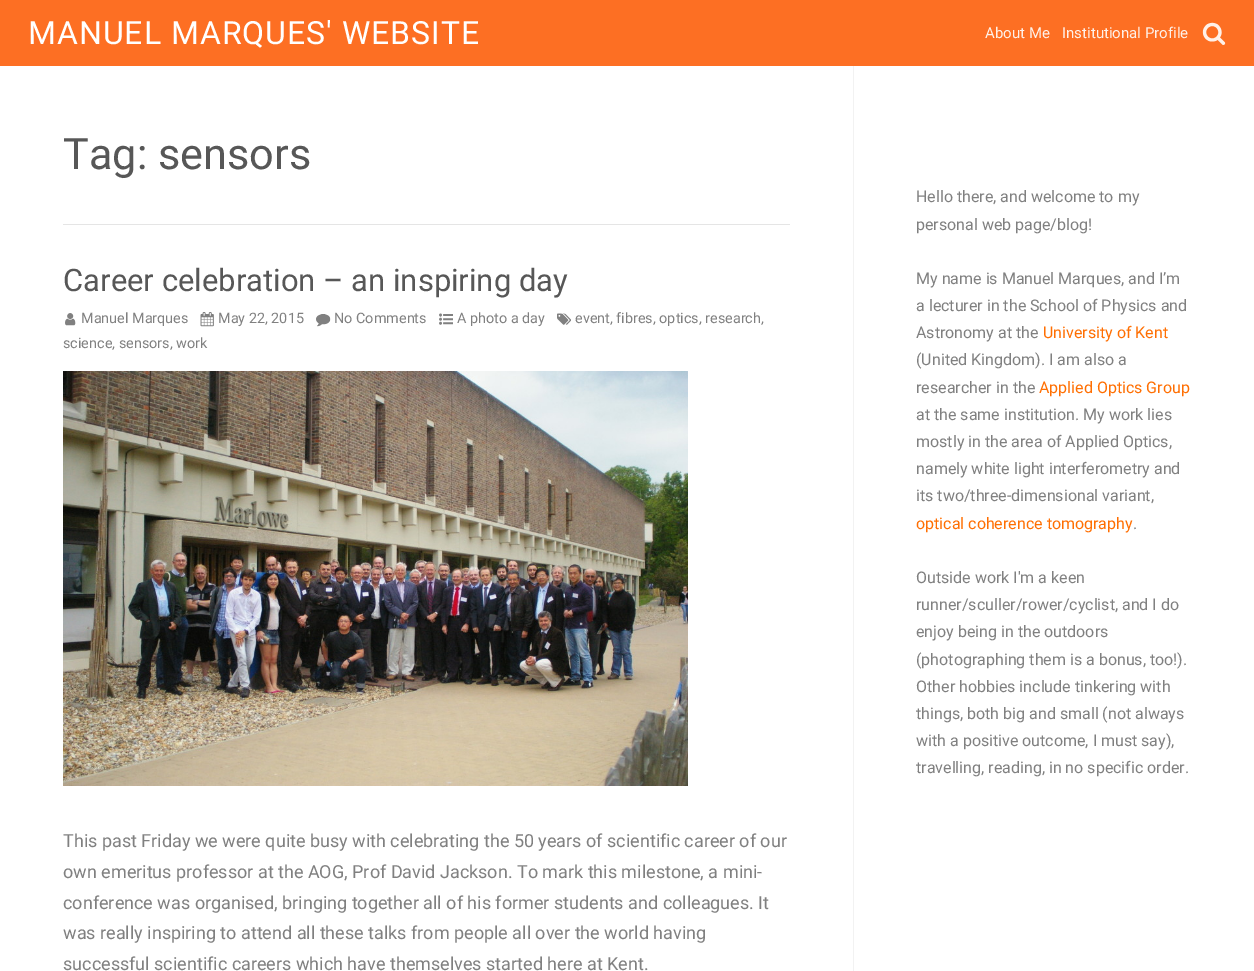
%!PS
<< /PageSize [1254 971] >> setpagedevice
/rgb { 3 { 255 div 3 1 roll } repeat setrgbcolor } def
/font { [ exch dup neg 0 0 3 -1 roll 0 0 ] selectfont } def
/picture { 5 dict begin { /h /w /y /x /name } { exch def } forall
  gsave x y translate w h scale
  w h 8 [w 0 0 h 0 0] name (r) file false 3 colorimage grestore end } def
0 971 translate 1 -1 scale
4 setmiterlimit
255 255 255 rgb
0 0 1254 971 rectfill
253 111 35 rgb
0 0 1254 66 rectfill
(img/1.rgb) 1202 22 24 23 picture
229 229 229 rgb
63 224 727 1 rectfill
(img/2.rgb) 557 313 14 12 picture
(img/3.rgb) 65 313 11 13 picture
(img/4.rgb) 200 312 14 15 picture
(img/5.rgb) 316 314 15 13 picture
(img/6.rgb) 439 313 14 12 picture
(img/7.rgb) 63 371 625 415 picture
242 242 242 rgb
853 66 1 905 rectfill
/Roboto-Regular 32 font
255 255 255 rgb
28 44 moveto 1 0 (MANUEL MARQUES' WEBSITE) ashow
/Roboto-Regular 15 font
255 241 233 rgb
985 38 moveto (About Me) show
1062 38 moveto (Institutional Profile) show
/Roboto-Regular 43.25 font
87 87 87 rgb
63 169 moveto (Tag: sensors) show
/Roboto-Regular 31 font
63 291 moveto (Career celebration – an inspiring day) show
/Roboto-Regular 14.4 font
128 128 128 rgb
[
  [(event, fibres, optics, research,) 575 323]
  [(science, sensors, work) 63 348]
  [(Manuel Marques) 81 323]
  [(May 22, 2015) 218 323]
  [(No Comments) 334 323]
  [(A photo a day) 457 323]
] { aload pop moveto show } forall
/Roboto-Regular 18 font
[
  [(This past Friday we were quite busy with celebrating the 50 years of scientific career of our) 63 847]
  [(own emeritus professor at the AOG, Prof David Jackson. To mark this milestone, a mini-) 63 878]
  [(conference was organised, bringing together all of his former students and colleagues. It) 63 909]
  [(was really inspiring to attend all these talks from people all over the world having) 63 939]
  [(successful scientific careers which have themselves started here at Kent.) 63 970]
] { aload pop moveto show } forall
/Roboto-Regular 16 font
[
  [(Hello there, and welcome to my) 916 202]
  [(personal web page/blog!) 916 230]
  [(My name is Manuel Marques, and I’m) 916 284]
  [(a lecturer in the School of Physics and) 916 311]
  [(Astronomy at the) 916 338]
] { aload pop moveto show } forall
255 111 2 rgb
1043 338 moveto (University of Kent) show
128 128 128 rgb
916 365 moveto (\(United Kingdom\). I am also a) show
916 393 moveto (researcher in the) show
255 111 2 rgb
1039 393 moveto (Applied Optics Group) show
128 128 128 rgb
[
  [(at the same institution. My work lies) 916 420]
  [(mostly in the area of Applied Optics,) 916 447]
  [(namely white light interferometry and) 916 474]
  [(its two/three-dimensional variant,) 916 501]
] { aload pop moveto show } forall
255 111 2 rgb
916 529 moveto (optical coherence tomography) show
128 128 128 rgb
[
  [(.) 1133 529]
  [(Outside work I'm a keen) 916 583]
  [(runner/sculler/rower/cyclist, and I do) 916 610]
  [(enjoy being in the outdoors) 916 637]
  [(\(photographing them is a bonus, too!\).) 916 665]
  [(Other hobbies include tinkering with) 916 692]
  [(things, both big and small \(not always) 916 719]
  [(with a positive outcome, I must say\),) 916 746]
  [(travelling, reading, in no specific order.) 916 773]
] { aload pop moveto show } forall
showpage
